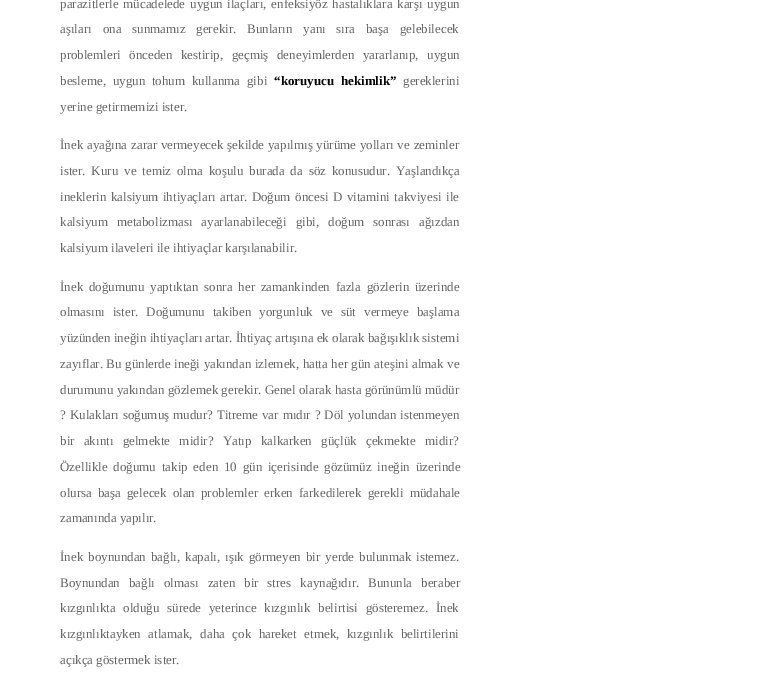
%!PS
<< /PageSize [771 691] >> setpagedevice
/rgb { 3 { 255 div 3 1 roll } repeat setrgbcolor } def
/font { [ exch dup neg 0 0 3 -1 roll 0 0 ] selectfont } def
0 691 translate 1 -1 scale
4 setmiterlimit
255 255 255 rgb
0 0 771 691 rectfill
/LiberationSerif-Regular 13 font
102 102 102 rgb
60 8 moveto 1.5 0 32 (parazitlerle mücadelede uygun ilaçları, enfeksiyöz hastalıklara karşı uygun) widthshow
60 33 moveto 7.5 0 32 (aşıları ona sunmamız gerekir. Bunların yanı sıra başa gelebilecek) widthshow
60 59 moveto 5.25 0 32 (problemleri önceden kestirip, geçmiş deneyimlerden yararlanıp, uygun) widthshow
60 85 moveto 3.5 0 32 (besleme, uygun tohum kullanma gibi) widthshow
/LiberationSerif-Bold 13 font
0 0 0 rgb
274 85 moveto 3.5 0 32 (“koruyucu hekimlik”) widthshow
/LiberationSerif-Regular 13 font
102 102 102 rgb
403 85 moveto (gereklerini) show
60 111 moveto (yerine getirmemizi ister.) show
60 149 moveto 0.5 0 32 (İnek ayağına zarar vermeyecek şekilde yapılmış yürüme yolları ve zeminler) widthshow
60 175 moveto 2.6 0 32 (ister. Kuru ve temiz olma koşulu burada da söz konusudur. Yaşlandıkça) widthshow
60 201 moveto 1.25 0 32 (ineklerin kalsiyum ihtiyaçları artar. Doğum öncesi D vitamini takviyesi ile) widthshow
60 226 moveto 5.75 0 32 (kalsiyum metabolizması ayarlanabileceği gibi, doğum sonrası ağızdan) widthshow
60 252 moveto (kalsiyum ilaveleri ile ihtiyaçlar karşılanabilir.) show
60 291 moveto 2.5 0 32 (İnek doğumunu yaptıktan sonra her zamankinden fazla gözlerin üzerinde) widthshow
60 316 moveto 4.75 0 32 (olmasını ister. Doğumunu takiben yorgunluk ve süt vermeye başlama) widthshow
60 342 moveto (yüzünden ineğin ihtiyaçları artar. İhtiyaç artışına ek olarak bağışıklık sistemi) show
60 368 moveto 0.25 0 32 (zayıflar. Bu günlerde ineği yakından izlemek, hatta her gün ateşini almak ve) widthshow
60 394 moveto (durumunu yakından gözlemek gerekir. Genel olarak hasta görünümlü müdür) show
60 419 moveto 0.75 0 32 (? Kulakları soğumuş mudur? Titreme var mıdır ? Döl yolundan istenmeyen) widthshow
60 445 moveto 6 0 32 (bir akıntı gelmekte midir? Yatıp kalkarken güçlük çekmekte midir?) widthshow
60 471 moveto 2.5 0 32 (Özellikle doğumu takip eden 10 gün içerisinde gözümüz ineğin üzerinde) widthshow
60 497 moveto 2.75 0 32 (olursa başa gelecek olan problemler erken farkedilerek gerekli müdahale) widthshow
60 522 moveto (zamanında yapılır.) show
60 561 moveto 1.75 0 32 (İnek boynundan bağlı, kapalı, ışık görmeyen bir yerde bulunmak istemez.) widthshow
60 587 moveto 5.75 0 32 (Boynundan bağlı olması zaten bir stres kaynağıdır. Bununla beraber) widthshow
60 612 moveto 4.5 0 32 (kızgınlıkta olduğu sürede yeterince kızgınlık belirtisi gösteremez. İnek) widthshow
60 638 moveto 4.25 0 32 (kızgınlıktayken atlamak, daha çok hareket etmek, kızgınlık belirtilerini) widthshow
60 664 moveto (açıkça göstermek ister.) show
showpage
